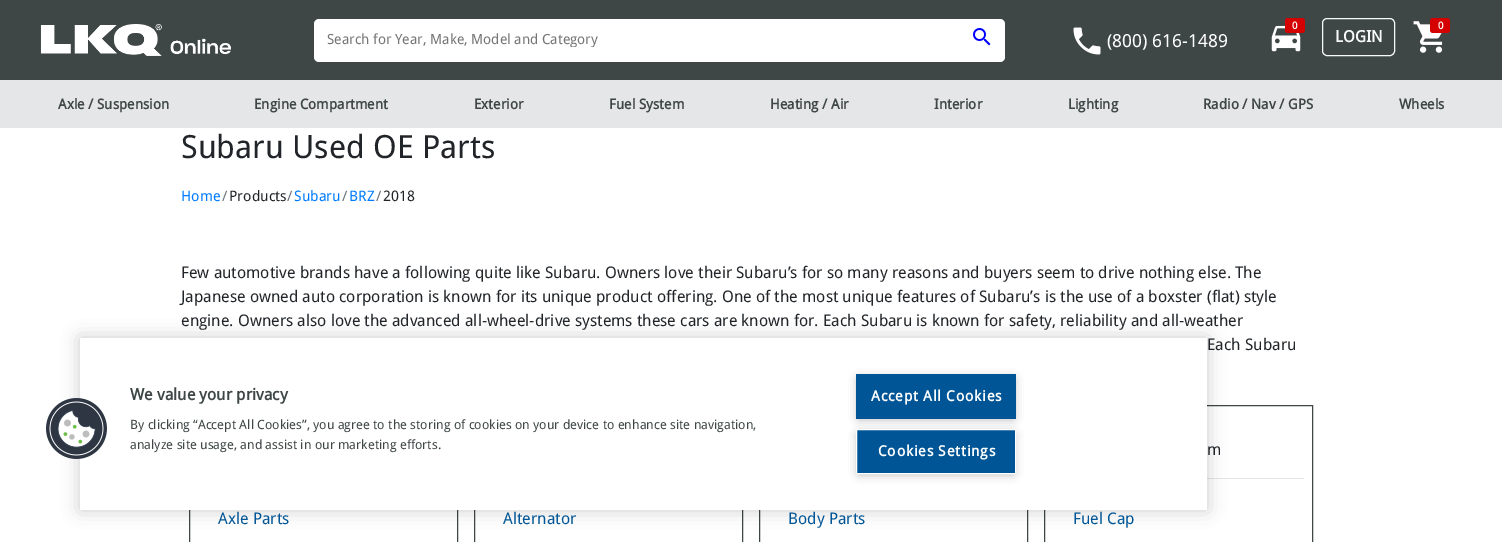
%!PS
<< /PageSize [1502 542] /PageUsesTransparency true >> setpagedevice
/rgb { 3 { 255 div 3 1 roll } repeat setrgbcolor } def
/font { [ exch dup neg 0 0 3 -1 roll 0 0 ] selectfont } def
/alpha { dup .setfillconstantalpha .setstrokeconstantalpha } def
/roundrect { 5 dict begin { /r /h /w /y /x } { exch def } forall
  x r add y moveto x w add y 2 copy h add r arct x w add y h add x 1 index r arct
  x y h add x y r arct x y 2 copy exch w add exch r arct closepath end } def
/shadow { 12 dict begin { /a /b /q /h /w /y /x } { exch def } forall gsave /was 0 def
  9 -2 -9 { dup b mul 4 div /e exch def 1 sub .425 mul 2.718 exch exp 1 add a .99 .min exch div /now exch def
    1 1 now sub 1 was sub div sub alpha /was now def
    w h .min e 2 mul add 0 gt { x e sub y e sub w e 2 mul add h e 2 mul add
      q e add b .6 mul add w h .min 2 div e add .min 0 .max roundrect fill } if } for grestore end } def
/picture { 5 dict begin { /h /w /y /x /name } { exch def } forall
  gsave x y translate w h scale
  w h 8 [w 0 0 h 0 0] name (r) file false 3 colorimage grestore end } def
0 .pushpdf14devicefilter
0 542 translate 1 -1 scale
4 setmiterlimit
255 255 255 rgb
0 0 1502 542 rectfill
62 70 70 rgb
0 0 1502 80 rectfill
(img/1.rgb) 40 24 191 32 picture
255 255 255 rgb
314 19 691 43 5 roundrect fill
(img/2.rgb) 973 28 18 18 picture
(img/3.rgb) 1073 27 28 28 picture
(img/4.rgb) 1271 25 30 27 picture
213 0 0 rgb
1285 18 20 15 3 roundrect fill
248 249 250 rgb
1322.5 18.5 72 37 4.5 roundrect stroke
(img/5.rgb) 1413 21 30 32 picture
213 0 0 rgb
1430 18 20 15 3 roundrect fill
229 230 231 rgb
0 80 1502 48 rectfill
62 70 70 rgb
189.5 405.5 268 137 rectstroke
474.5 405.5 268 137 rectstroke
759.5 405.5 268 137 rectstroke
1044.5 405.5 268 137 rectstroke
230 230 230 rgb
1207 478 97 1 rectfill
0 0 0 rgb
80 338 1127 172 0 9 0.2 shadow
255 255 255 rgb
80 338 1127 172 rectfill
(img/6.rgb) 46 398 61 61 picture
153 153 153 rgb
859 379 154 39 0 5 1 shadow
0 85 150 rgb
856 374 160 45 rectfill
153 153 153 rgb
859 434 154 39 0 5 1 shadow
0 85 150 rgb
856.5 429.5 moveto 1015.5 429.5 lineto 1015.5 473.5 lineto 856.5 473.5 lineto closepath gsave fill grestore
255 255 255 rgb
stroke
gsave
327 31 629 16 rectclip
/DroidSans-Regular 14 font
117 117 117 rgb
327 44 moveto (Search for Year, Make, Model and Category) show
grestore
/DroidSans-Regular 18 font
1107 47 moveto (\(800\) 616-1489) show
/DroidSans-Bold 10 font
1292 29 moveto (0) show
/DroidSans-Bold 16 font
248 249 250 rgb
1335 42 moveto (LOGIN) show
/DroidSans-Bold 10 font
255 255 255 rgb
1438 29 moveto (0) show
/DroidSans-Bold 14 font
62 70 70 rgb
[
  [(Axle / Suspension) 58 109]
  [(Engine Compartment) 254 109]
  [(Exterior) 474 109]
  [(Fuel System) 609 109]
  [(Heating / Air) 770 109]
  [(Interior) 934 109]
  [(Lighting) 1068 109]
  [(Radio / Nav / GPS) 1203 109]
  [(Wheels) 1399 109]
] { aload pop moveto show } forall
/DroidSans-Regular 32 font
33 37 41 rgb
181 158 moveto (Subaru Used OE Parts) show
/DroidSans-Regular 14.5 font
0 123 255 rgb
181 201 moveto (Home) show
108 117 125 rgb
222 201 moveto (/) show
33 37 41 rgb
229 201 moveto (Products) show
108 117 125 rgb
287 201 moveto (/) show
0 123 255 rgb
294 201 moveto (Subaru) show
108 117 125 rgb
342 201 moveto (/) show
0 123 255 rgb
349 201 moveto (BRZ) show
108 117 125 rgb
376 201 moveto (/) show
33 37 41 rgb
383 201 moveto (2018) show
/DroidSans-Regular 16 font
[
  [(Few automotive brands have a following quite like Subaru. Owners love their Subaru’s for so many reasons and buyers seem to drive nothing else. The) 181 278]
  [(Japanese owned auto corporation is known for its unique product offering. One of the most unique features of Subaru’s is the use of a boxster \(flat\) style) 181 302]
  [(engine. Owners also love the advanced all-wheel-drive systems these cars are known for. Each Subaru is known for safety, reliability and all-weather) 181 326]
  [(Each Subaru) 1207 350]
] { aload pop moveto show } forall
0 85 150 rgb
[
  [(Axle Parts) 218 524]
  [(Alternator) 503 524]
  [(Body Parts) 788 524]
] { aload pop moveto show } forall
33 37 41 rgb
1207 455 moveto (m) show
0 85 150 rgb
1073 524 moveto (Fuel Cap) show
/DroidSans-Bold 16 font
62 70 70 rgb
130 400 moveto (We value your privacy) show
/DroidSans-Regular 12.8 font
130 429 moveto (By clicking “Accept All Cookies”, you agree to the storing of cookies on your device to enhance site navigation,) show
130 449 moveto (analyze site usage, and assist in our marketing efforts.) show
/DroidSans-Bold 14.5 font
255 255 255 rgb
871 401 moveto 0.75 0 (Accept All Cookies) ashow
878 456 moveto 0.75 0 (Cookies Settings) ashow
.poppdf14devicefilter showpage
